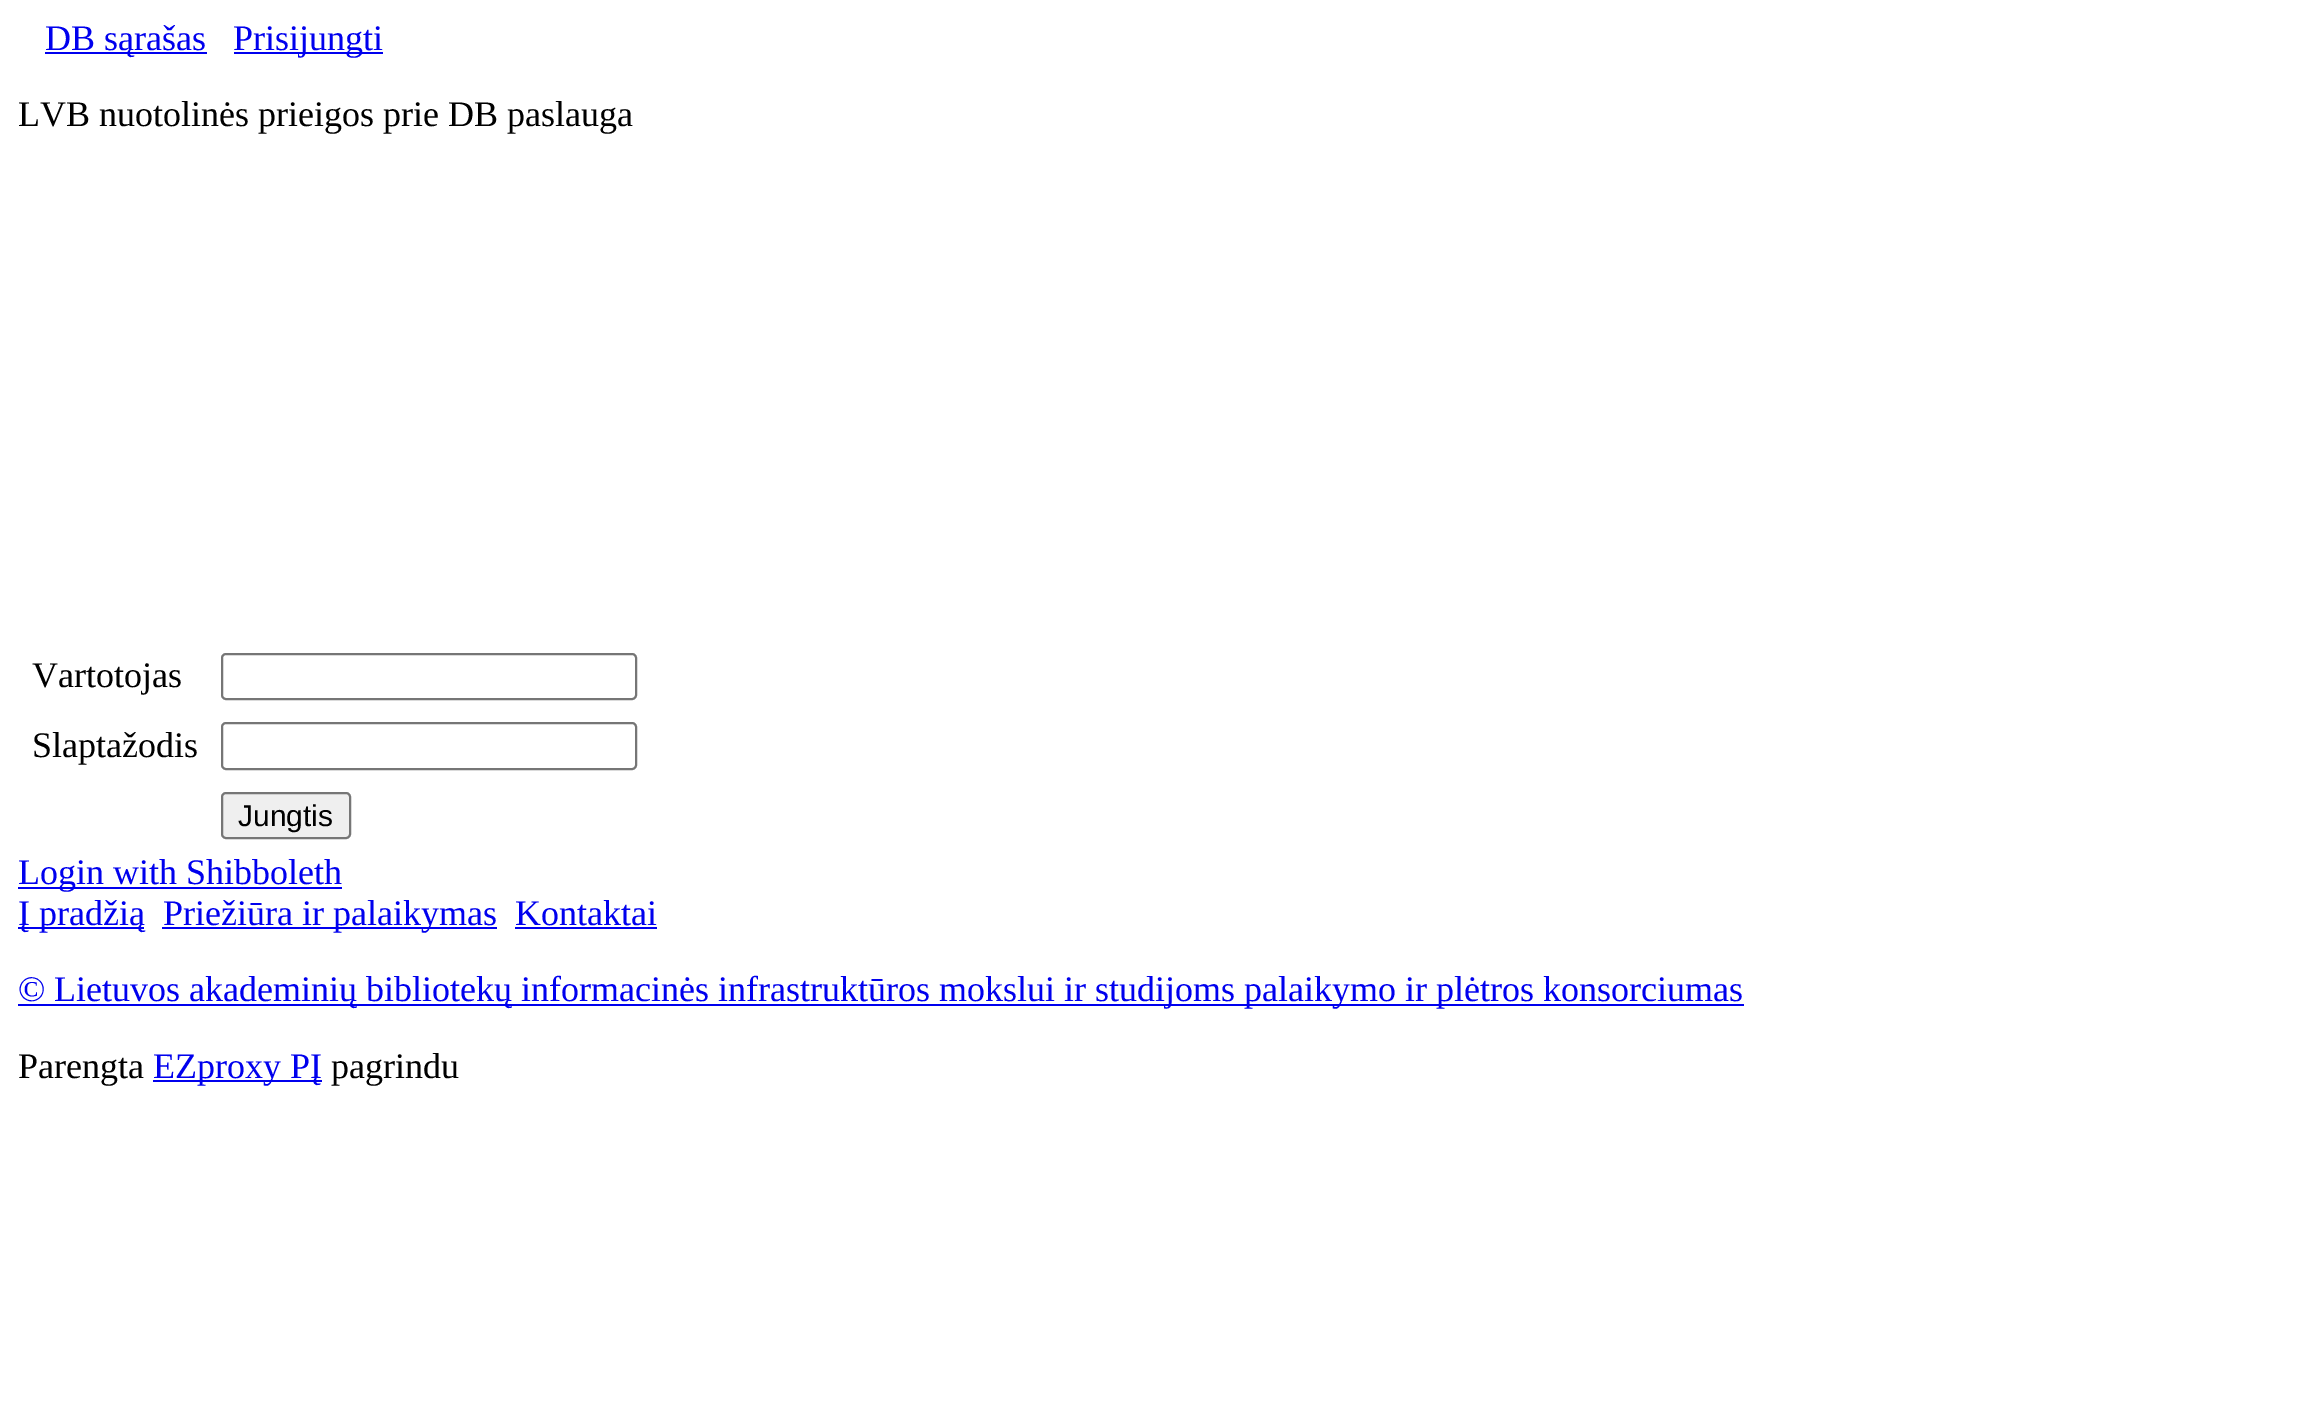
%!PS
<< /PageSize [2312 1428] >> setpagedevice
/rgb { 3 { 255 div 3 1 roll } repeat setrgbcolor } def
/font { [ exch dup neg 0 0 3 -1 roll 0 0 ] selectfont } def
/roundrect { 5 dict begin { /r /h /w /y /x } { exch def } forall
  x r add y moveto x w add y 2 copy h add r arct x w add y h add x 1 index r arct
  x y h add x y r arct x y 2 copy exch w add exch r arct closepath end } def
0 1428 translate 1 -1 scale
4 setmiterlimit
255 255 255 rgb
0 0 2312 1428 rectfill
0 0 238 rgb
45 52 162 2 rectfill
234 52 149 2 rectfill
118 118 118 rgb
2 setlinewidth
222 654 414 45 4 roundrect stroke
222 723 414 46 4 roundrect stroke
239 239 239 rgb
222 793 128 45 4 roundrect gsave fill grestore
118 118 118 rgb
stroke
[
  [18 887 324 2 0 0 238]
  [18 927 126 2 0 0 238]
  [162 927 335 2 0 0 238]
  [515 927 142 2 0 0 238]
  [18 1004 1726 2 0 0 238]
  [153 1080 169 2 0 0 238]
] { aload pop rgb rectfill } forall
/LiberationSerif-Regular 36 font
45 50 moveto (DB sąrašas) show
233 50 moveto (Prisijungti) show
0 0 0 rgb
[
  [(LVB nuotolinės prieigos prie DB paslauga) 18 126]
  [(Vartotojas) 32 687]
  [(Slaptažodis) 32 757]
] { aload pop moveto show } forall
/LiberationSans-Regular 30 font
238 826 moveto (Jungtis) show
/LiberationSerif-Regular 36 font
0 0 238 rgb
[
  [(Login with Shibboleth) 18 884]
  [(Į pradžią) 18 925]
  [(Priežiūra ir palaikymas) 163 925]
  [(Kontaktai) 515 925]
  [(© Lietuvos akademinių bibliotekų informacinės infrastruktūros mokslui ir studijoms palaikymo ir plėtros konsorciumas) 18 1001]
] { aload pop moveto show } forall
0 0 0 rgb
18 1078 moveto (Parengta) show
0 0 238 rgb
153 1078 moveto (EZproxy PĮ) show
0 0 0 rgb
331 1078 moveto (pagrindu) show
showpage
